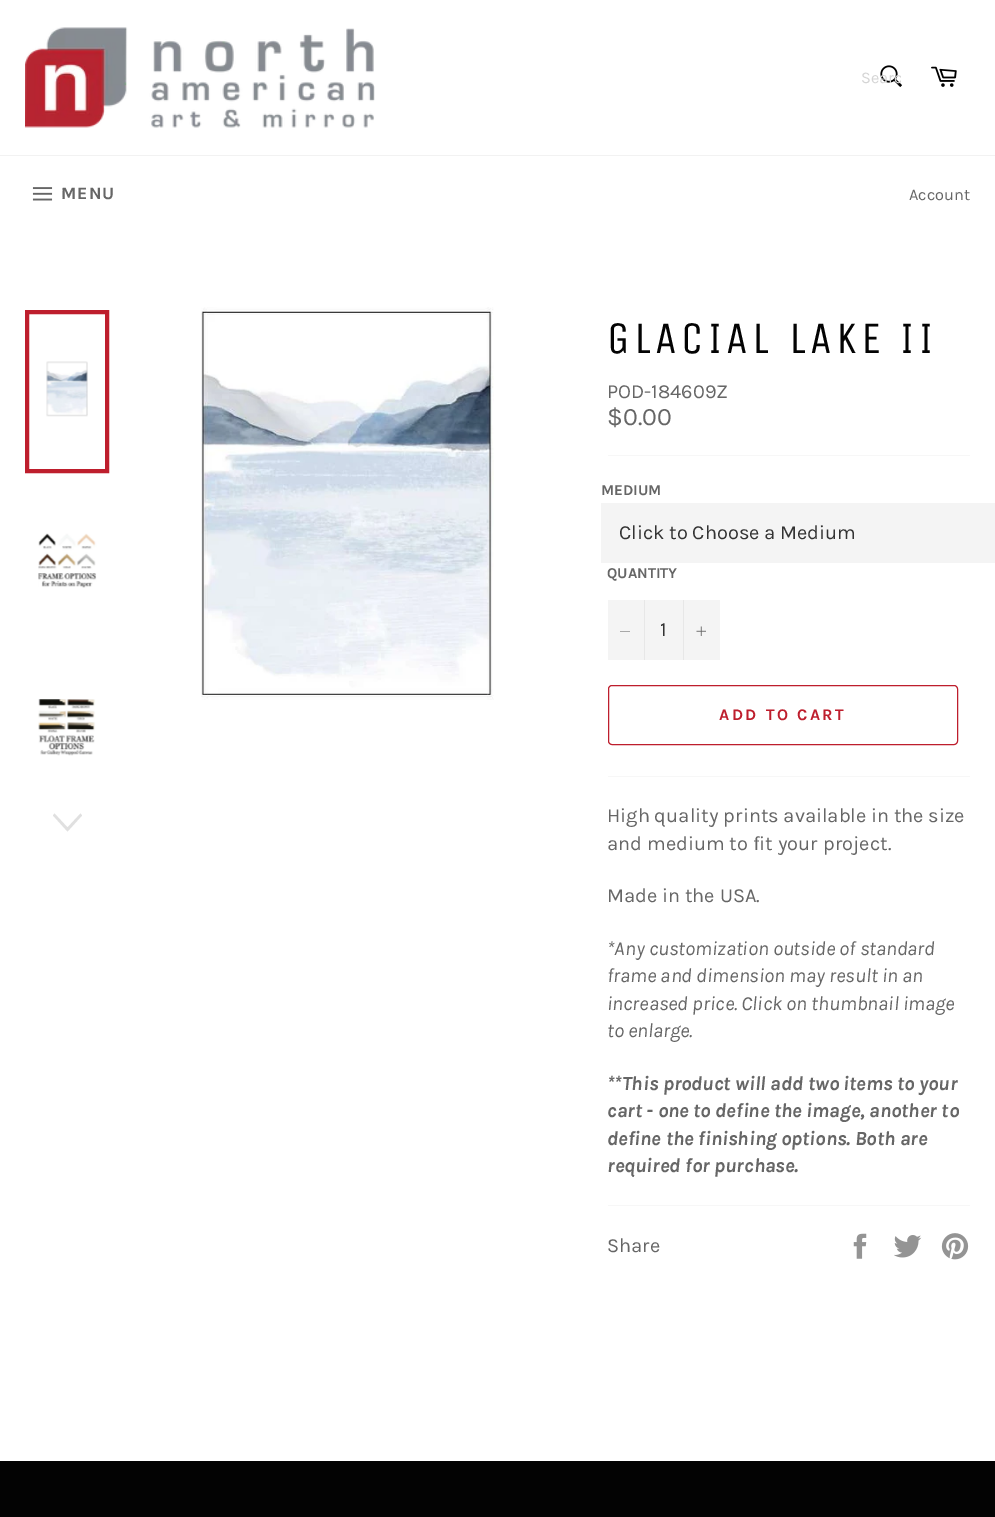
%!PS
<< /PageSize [995 1517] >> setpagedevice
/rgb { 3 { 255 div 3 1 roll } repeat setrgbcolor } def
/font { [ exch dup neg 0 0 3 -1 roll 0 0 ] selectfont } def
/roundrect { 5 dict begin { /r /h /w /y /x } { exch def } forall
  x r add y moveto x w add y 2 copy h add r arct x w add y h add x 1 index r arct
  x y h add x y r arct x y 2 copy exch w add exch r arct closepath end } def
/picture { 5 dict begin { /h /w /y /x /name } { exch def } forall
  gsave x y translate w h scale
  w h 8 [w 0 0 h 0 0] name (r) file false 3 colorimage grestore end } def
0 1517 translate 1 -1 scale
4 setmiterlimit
255 255 255 rgb
0 0 995 1517 rectfill
(img/1.rgb) 25 27 350 101 picture
(img/2.rgb) 880 65 22 22 picture
(img/3.rgb) 931 66 26 21 picture
242 242 242 rgb
0 155 995 1 rectfill
(img/4.rgb) 32 187 21 14 picture
(img/5.rgb) 46 361 42 56 picture
190 30 45 rgb
4 setlinewidth
27 312 80 159 rectstroke
(img/6.rgb) 38 533 59 55 picture
(img/7.rgb) 38 699 58 57 picture
224 224 224 rgb
80.5 813.5 moveto 82 815.5 lineto 67.5 831.5 lineto 53 815.5 lineto 54.5 813.5 lineto 67.5 827.5 lineto closepath fill
(img/8.rgb) 201 307 293 393 picture
[
  [608 455 362 1 247 247 247]
  [601 503 394 60 244 244 244]
  [608 600 112 60 244 244 244]
  [644 600 1 60 231 231 231]
] { aload pop rgb rectfill } forall
102 102 102 rgb
630 631 moveto 630 631.5 lineto 620 631.5 lineto 620 631 lineto closepath eofill
231 231 231 rgb
683 600 1 60 rectfill
(img/9.rgb) 696 626 10 10 picture
190 30 45 rgb
1 setlinewidth
608.5 685.5 349 59 3.5 roundrect stroke
247 247 247 rgb
608 776 362 1 rectfill
608 1205 362 1 rectfill
(img/10.rgb) 853 1233 14 26 picture
(img/11.rgb) 894 1235 28 23 picture
(img/12.rgb) 941 1233 28 27 picture
3 3 3 rgb
0 1461 995 56 rectfill
gsave
861 69 40 19 rectclip
/Karla-Regular 16.25 font
213 213 213 rgb
861 83 moveto (Searc) show
grestore
/Karla-Bold 17.5 font
102 102 102 rgb
61 199 moveto 1 0 (MENU) ashow
/Karla-Regular 16.25 font
909 200 moveto (Account) show
/UnicaOne-Regular 45 font
3 3 3 rgb
607 353 moveto 4.5 0 (GLACIAL LAKE II) ashow
/Karla-Regular 20 font
102 102 102 rgb
607 398 moveto (POD-184609Z) show
/Karla-Regular 25 font
607 425 moveto ($0.00) show
/Karla-Bold 15 font
601 495 moveto (MEDIUM) show
/Karla-Regular 20 font
51 51 51 rgb
619 539 moveto (Click to Choose a Medium) show
/Karla-Bold 15 font
102 102 102 rgb
607 578 moveto (QUANTITY) show
/Karla-Regular 20 font
51 51 51 rgb
660 636 moveto (1) show
/Karla-Bold 16.25 font
190 30 45 rgb
719 720 moveto 2.5 0 (ADD TO CART) ashow
/Karla-Regular 20 font
102 102 102 rgb
[
  [(High quality prints available in the size) 607 822]
  [(and medium to fit your project.) 607 850]
  [(Made in the USA.) 607 902]
] { aload pop moveto show } forall
/Karla-Italic 20 font
[
  [(*Any customization outside of standard) 607 955]
  [(frame and dimension may result in an) 607 982]
  [(increased price. Click on thumbnail image) 607 1010]
  [(to enlarge.) 607 1037]
] { aload pop moveto show } forall
/Karla-BoldItalic 20 font
[
  [(**This product will add two items to your) 607 1090]
  [(cart - one to define the image, another to) 607 1117]
  [(define the finishing options. Both are) 607 1145]
  [(required for purchase.) 607 1172]
] { aload pop moveto show } forall
/Karla-Regular 20 font
607 1252 moveto (Share) show
showpage
